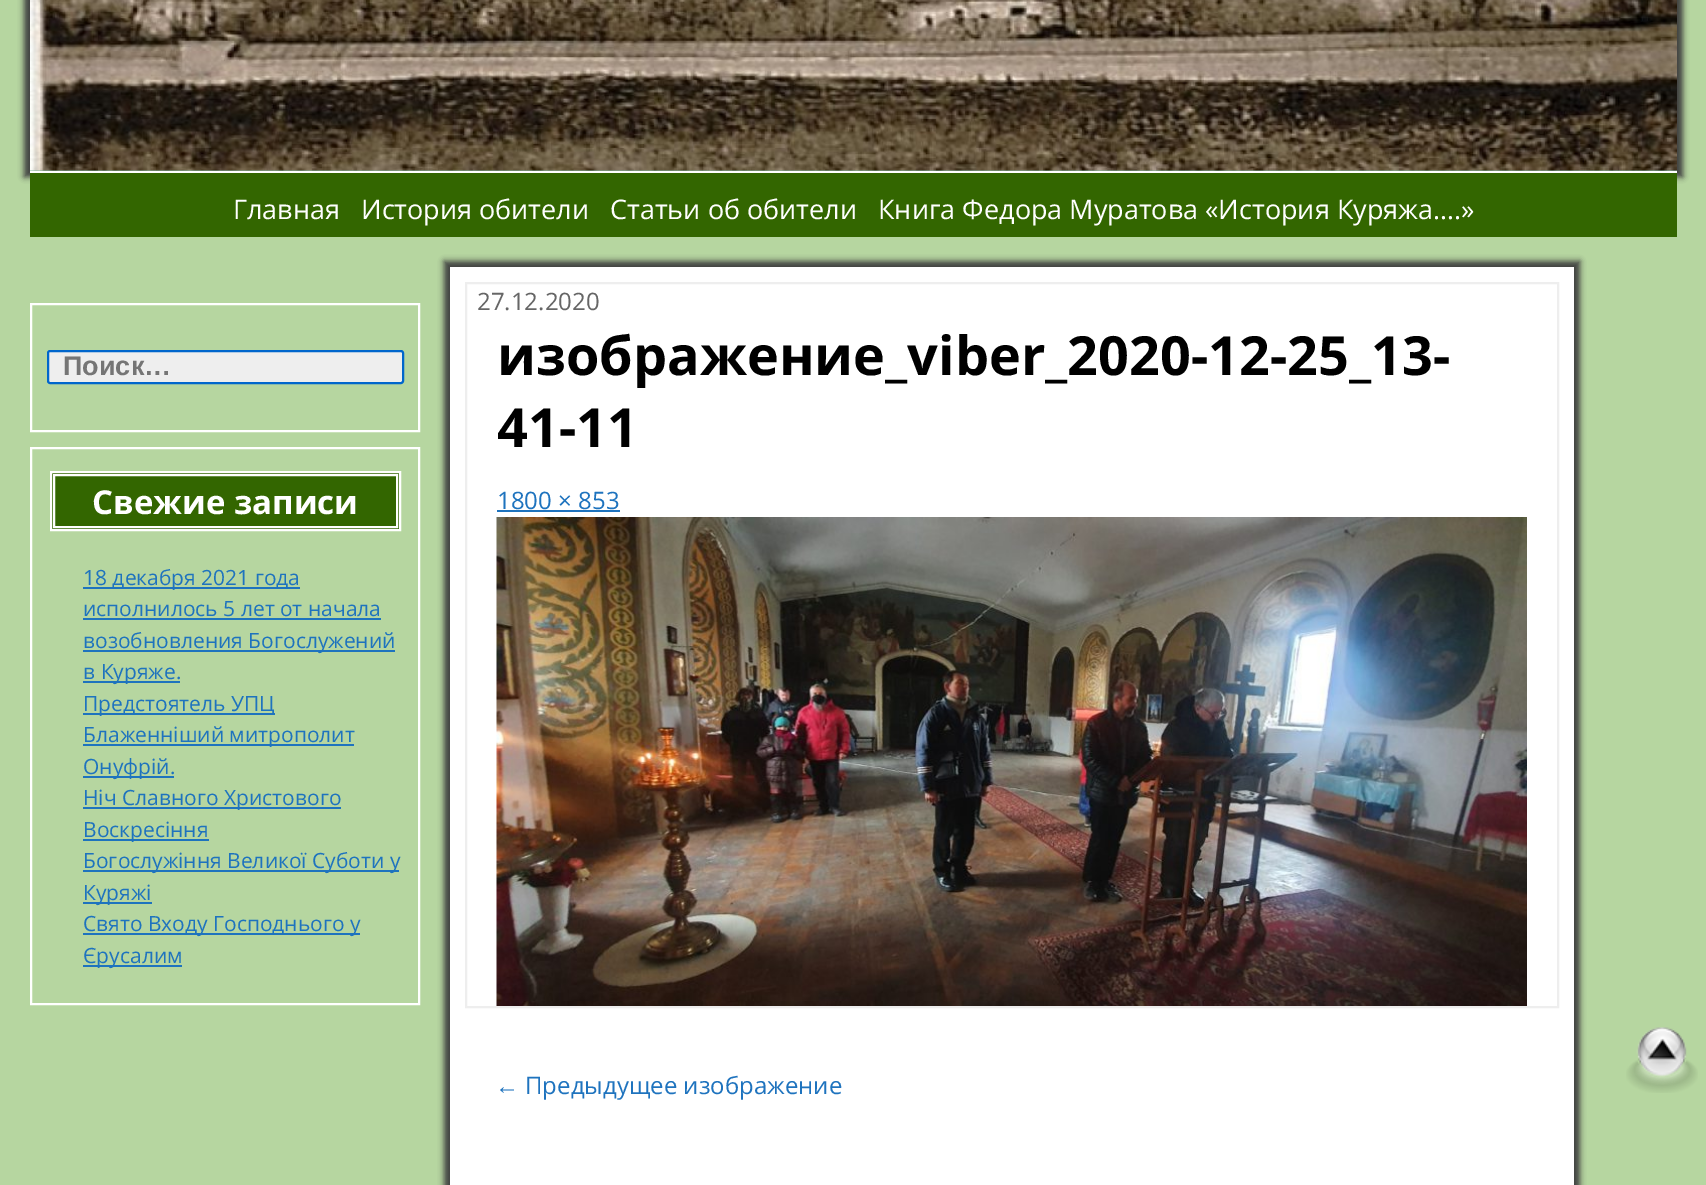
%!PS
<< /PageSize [1706 1185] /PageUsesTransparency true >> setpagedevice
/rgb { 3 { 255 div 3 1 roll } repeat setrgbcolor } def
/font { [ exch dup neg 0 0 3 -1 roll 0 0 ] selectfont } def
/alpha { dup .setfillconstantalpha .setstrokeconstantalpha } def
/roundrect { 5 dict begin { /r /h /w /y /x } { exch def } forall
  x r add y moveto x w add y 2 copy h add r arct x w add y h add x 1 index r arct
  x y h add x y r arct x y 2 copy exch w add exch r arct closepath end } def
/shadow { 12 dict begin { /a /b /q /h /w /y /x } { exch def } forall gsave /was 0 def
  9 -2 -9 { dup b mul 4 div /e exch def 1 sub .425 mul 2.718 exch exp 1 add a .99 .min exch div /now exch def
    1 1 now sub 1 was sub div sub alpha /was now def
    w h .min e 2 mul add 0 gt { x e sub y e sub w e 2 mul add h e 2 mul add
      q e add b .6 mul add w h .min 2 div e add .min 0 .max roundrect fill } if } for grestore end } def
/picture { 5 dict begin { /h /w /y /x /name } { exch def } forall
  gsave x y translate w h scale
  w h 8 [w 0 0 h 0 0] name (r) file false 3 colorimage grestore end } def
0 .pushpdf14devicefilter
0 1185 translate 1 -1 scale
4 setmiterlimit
182 214 160 rgb
0 0 1706 1185 rectfill
63 63 63 rgb
24 -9 1659 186 0 3 1 shadow
130 183 157 rgb
30 170 1647 1 rectfill
(img/1.rgb) 30 0 1647 171 picture
51 102 0 rgb
30 173 1647 64 rectfill
255 255 255 rgb
30 171 1647 2 rectfill
2 setlinewidth
31 304 388 127 rectstroke
238 238 238 rgb
48 351 355 32 2 roundrect gsave fill grestore
0 102 204 rgb
stroke
255 255 255 rgb
31 448 388 556 rectstroke
51 102 0 rgb
51 472 moveto 400 472 lineto 400 530 lineto 51 530 lineto closepath gsave fill grestore
255 255 255 rgb
stroke
54 475 343 52 rectstroke
[
  [83 587 217 2 30 115 190]
  [83 618 298 2 30 115 190]
  [83 650 312 2 30 115 190]
  [83 681 97 2 30 115 190]
  [83 713 192 2 30 115 190]
  [83 744 271 2 30 115 190]
  [83 776 91 2 30 115 190]
  [83 807 258 2 30 115 190]
  [83 839 126 2 30 115 190]
  [83 870 316 2 30 115 190]
  [83 902 69 2 30 115 190]
  [83 933 277 2 30 115 190]
  [83 965 99 2 30 115 190]
] { aload pop rgb rectfill } forall
63 63 63 rgb
444 261 1136 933 0 3 1 shadow
255 255 255 rgb
450 267 1124 918 rectfill
238 238 238 rgb
466 283 1092 724 rectstroke
30 115 190 rgb
497 510 123 2 rectfill
(img/2.rgb) 496 517 1031 489 picture
(img/3.rgb) 1626 1027 72 66 picture
/OpenSans-Regular 27 font
255 255 255 rgb
[
  [(Главная) 233 219]
  [(История обители) 361 219]
  [(Статьи об обители) 610 219]
  [(Книга Федора Муратова «История Куряжа….») 878 219]
] { aload pop moveto show } forall
/LiberationSans-Bold 27 font
117 117 117 rgb
63 375 moveto (Поиск…) show
/OpenSans-Bold 33 font
255 255 255 rgb
92 514 moveto (Свежие записи) show
/OpenSans-Regular 21 font
30 115 190 rgb
[
  [(18 декабря 2021 года) 83 585]
  [(исполнилось 5 лет от начала) 83 616]
  [(возобновления Богослужений) 83 648]
  [(в Куряже.) 83 679]
  [(Предстоятель УПЦ) 83 711]
  [(Блаженніший митрополит) 83 742]
  [(Онуфрій.) 83 774]
  [(Ніч Славного Христового) 83 805]
  [(Воскресіння) 83 837]
  [(Богослужіння Великої Суботи у) 83 868]
  [(Куряжі) 83 900]
  [(Свято Входу Господнього у) 83 931]
  [(Єрусалим) 83 963]
] { aload pop moveto show } forall
/OpenSans-Regular 24 font
102 102 102 rgb
477 310 moveto (27.12.2020) show
/OpenSans-Bold 54 font
0 0 0 rgb
497 375 moveto (изображение_viber_2020-12-25_13-) show
497 447 moveto (41-11) show
/OpenSans-Regular 24 font
30 115 190 rgb
497 509 moveto (1800 × 853) show
/LiberationSans-Regular 24 font
495 1094 moveto (←) show
/OpenSans-Regular 24 font
525 1094 moveto (Предыдущее изображение) show
.poppdf14devicefilter showpage
